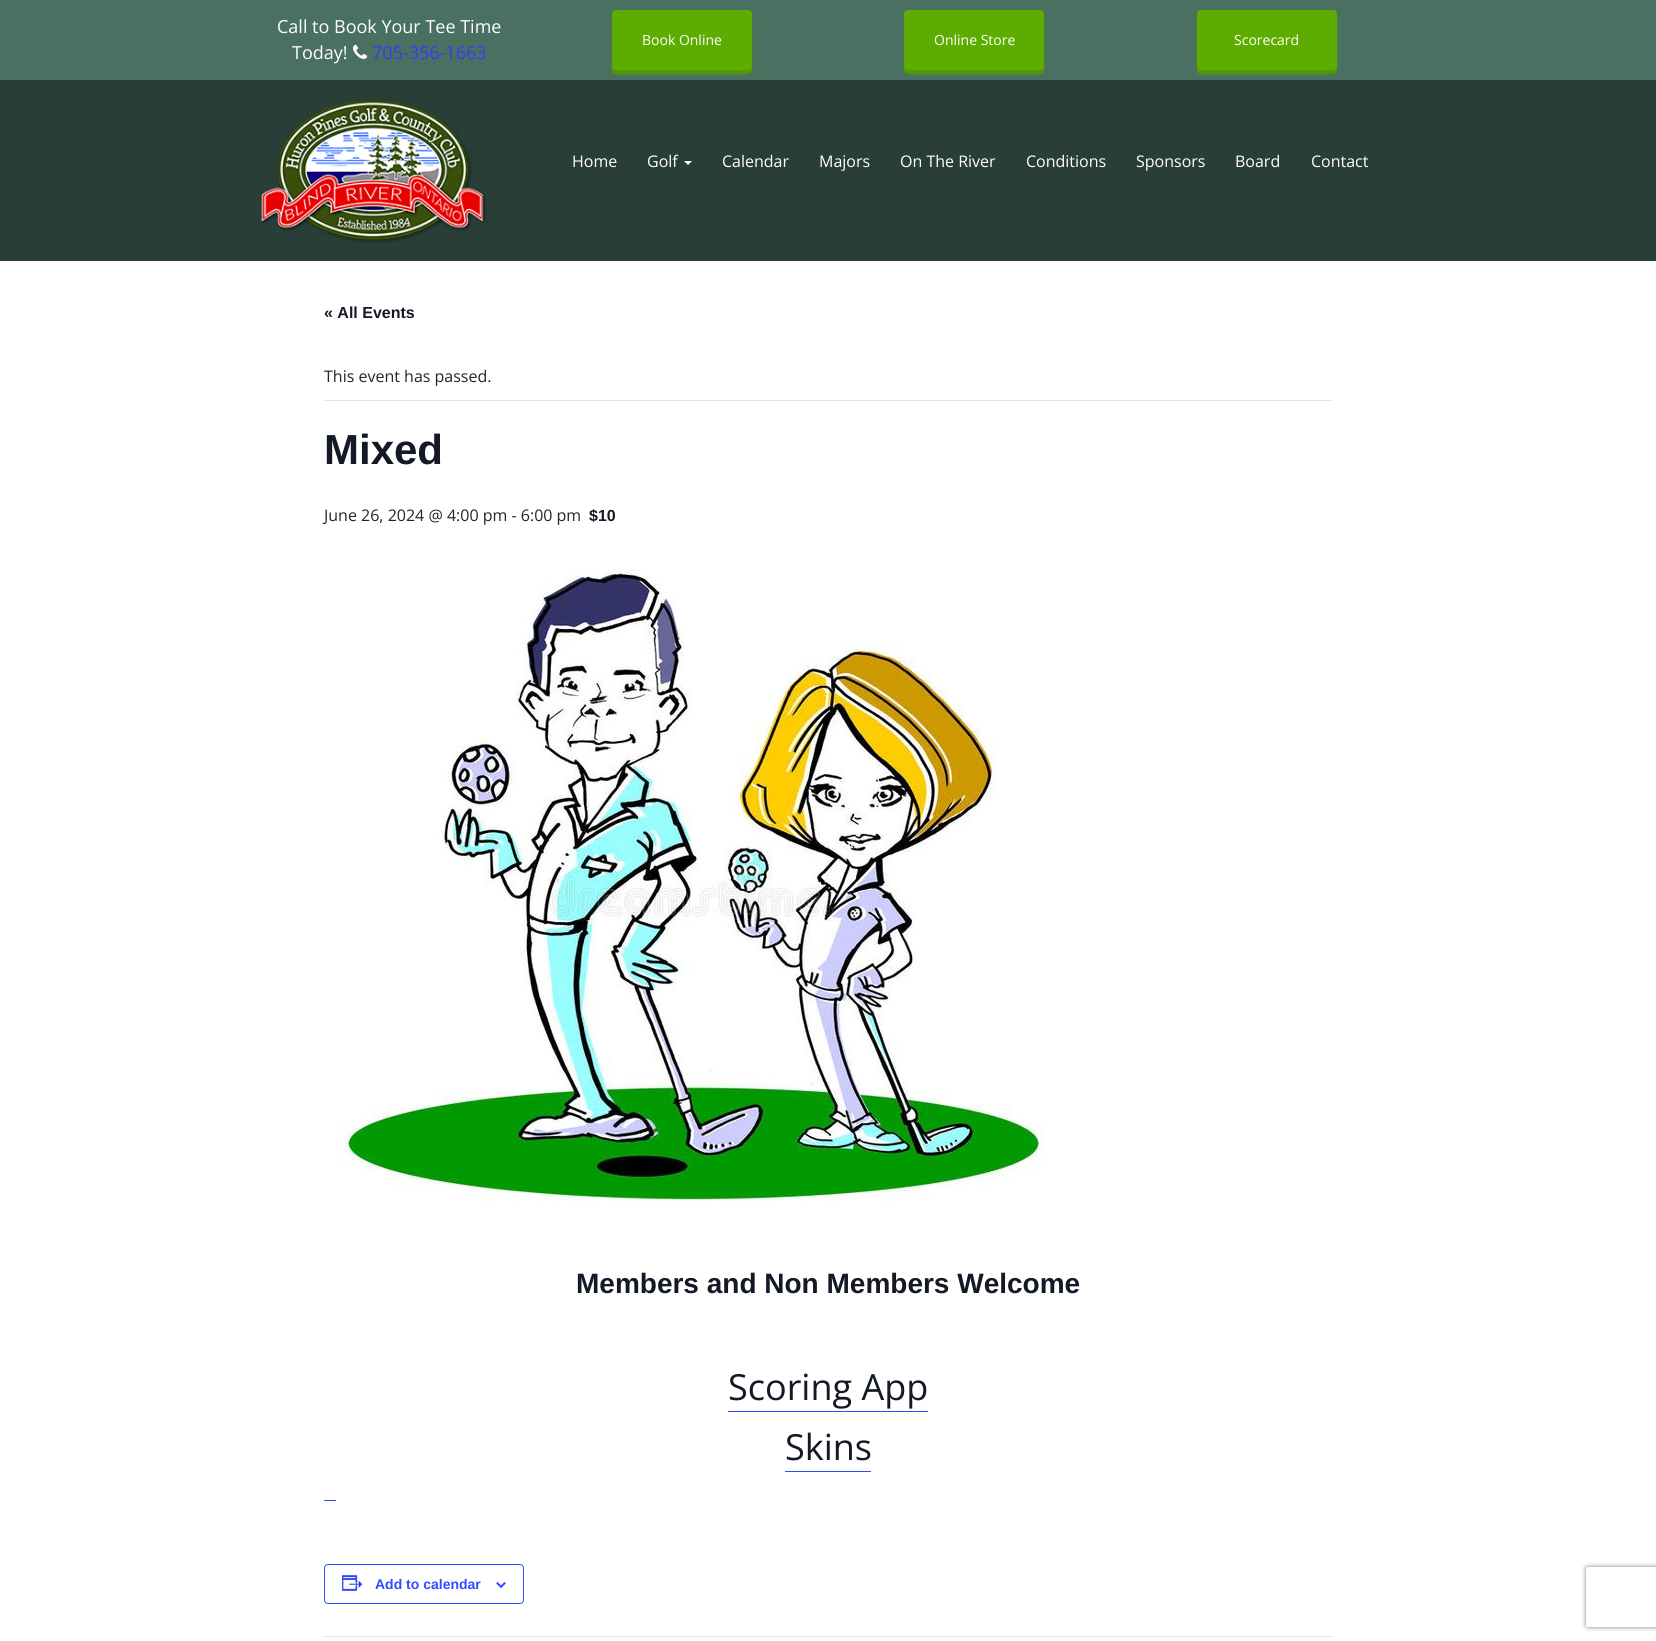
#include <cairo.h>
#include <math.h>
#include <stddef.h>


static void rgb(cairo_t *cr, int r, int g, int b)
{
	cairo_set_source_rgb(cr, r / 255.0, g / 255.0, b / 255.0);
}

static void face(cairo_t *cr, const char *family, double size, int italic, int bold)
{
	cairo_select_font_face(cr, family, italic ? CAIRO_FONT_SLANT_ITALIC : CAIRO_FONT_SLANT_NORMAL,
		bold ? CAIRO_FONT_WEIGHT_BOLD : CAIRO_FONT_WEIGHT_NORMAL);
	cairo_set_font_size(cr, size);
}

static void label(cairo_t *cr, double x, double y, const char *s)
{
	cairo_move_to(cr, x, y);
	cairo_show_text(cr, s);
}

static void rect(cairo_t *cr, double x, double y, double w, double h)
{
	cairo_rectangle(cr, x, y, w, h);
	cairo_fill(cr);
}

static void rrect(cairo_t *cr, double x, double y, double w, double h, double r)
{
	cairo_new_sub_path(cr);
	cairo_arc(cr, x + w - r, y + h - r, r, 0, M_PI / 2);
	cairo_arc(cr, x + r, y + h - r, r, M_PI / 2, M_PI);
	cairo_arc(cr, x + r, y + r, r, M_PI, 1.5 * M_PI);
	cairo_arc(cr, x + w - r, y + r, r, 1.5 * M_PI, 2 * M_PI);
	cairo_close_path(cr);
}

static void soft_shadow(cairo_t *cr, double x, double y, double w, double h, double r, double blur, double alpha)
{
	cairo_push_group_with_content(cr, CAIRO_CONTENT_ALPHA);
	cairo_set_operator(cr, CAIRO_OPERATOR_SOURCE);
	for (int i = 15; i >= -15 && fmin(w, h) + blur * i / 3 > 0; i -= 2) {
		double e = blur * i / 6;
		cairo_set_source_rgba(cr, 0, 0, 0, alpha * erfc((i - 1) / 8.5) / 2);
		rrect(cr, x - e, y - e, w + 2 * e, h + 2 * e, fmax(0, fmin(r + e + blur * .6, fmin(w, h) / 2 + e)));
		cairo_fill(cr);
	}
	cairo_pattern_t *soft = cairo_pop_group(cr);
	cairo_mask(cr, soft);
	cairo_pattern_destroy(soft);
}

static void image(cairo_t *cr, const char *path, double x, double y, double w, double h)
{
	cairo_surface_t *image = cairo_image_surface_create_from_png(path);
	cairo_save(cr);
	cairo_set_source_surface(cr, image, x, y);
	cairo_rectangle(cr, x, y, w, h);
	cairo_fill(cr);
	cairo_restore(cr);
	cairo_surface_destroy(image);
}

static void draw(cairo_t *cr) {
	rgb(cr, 255, 255, 255);
	cairo_paint(cr);
	rgb(cr, 74, 112, 97);
	rect(cr, 0, 0, 1656, 80);
	face(cr, "Open Sans", 18, 0, 0);
	rgb(cr, 255, 255, 255);
	label(cr, 277, 33, "Call to Book Your Tee Time");
	label(cr, 292, 59, "Today!");
	image(cr, "image0.png", 353, 44, 15, 15);
	rgb(cr, 51, 60, 255);
	label(cr, 372, 59, "705-356-1663");
	rgb(cr, 82, 154, 0);
	soft_shadow(cr, 612, 14, 140, 60, 4, 0.5, 1);
	rgb(cr, 92, 173, 0);
	rrect(cr, 612, 10, 140, 60, 4);
	cairo_fill(cr);
	face(cr, "Open Sans", 14, 0, 0);
	rgb(cr, 255, 255, 255);
	label(cr, 642, 45, "Book Online");
	rgb(cr, 82, 154, 0);
	soft_shadow(cr, 904, 14, 140, 60, 4, 0.5, 1);
	rgb(cr, 92, 173, 0);
	rrect(cr, 904, 10, 140, 60, 4);
	cairo_fill(cr);
	rgb(cr, 255, 255, 255);
	label(cr, 934, 45, "Online Store");
	rgb(cr, 82, 154, 0);
	soft_shadow(cr, 1197, 14, 140, 60, 4, 0.5, 1);
	rgb(cr, 92, 173, 0);
	rrect(cr, 1197, 10, 140, 60, 4);
	cairo_fill(cr);
	rgb(cr, 255, 255, 255);
	label(cr, 1234, 45, "Scorecard");
	rgb(cr, 41, 62, 55);
	rect(cr, 0, 80, 1656, 181);
	image(cr, "image1.png", 261, 99, 225, 144);
	face(cr, "Open Sans", 16, 0, 0);
	rgb(cr, 255, 255, 255);
	label(cr, 572, 167, "Home");
	label(cr, 647, 167, "Golf");
	cairo_new_path(cr);
	cairo_move_to(cr, 684, 161);
	cairo_line_to(cr, 692, 161);
	cairo_line_to(cr, 688, 165);
	cairo_close_path(cr);
	cairo_fill(cr);
	label(cr, 722, 167, "Calendar");
	label(cr, 819, 167, "Majors");
	label(cr, 900, 167, "On The River");
	label(cr, 1026, 167, "Conditions");
	label(cr, 1136, 167, "Sponsors");
	label(cr, 1235, 167, "Board");
	label(cr, 1311, 167, "Contact");
	face(cr, "Liberation Sans", 16, 0, 1);
	rgb(cr, 20, 24, 39);
	label(cr, 324, 318, "« All Events");
	rgb(cr, 228, 228, 228);
	rect(cr, 324, 400, 1008, 1);
	face(cr, "Open Sans", 16, 0, 0);
	rgb(cr, 37, 37, 37);
	label(cr, 324, 382, "This event has passed.");
	face(cr, "Liberation Sans", 42, 0, 1);
	rgb(cr, 20, 24, 39);
	label(cr, 324, 464, "Mixed");
	face(cr, "Open Sans", 16, 0, 0);
	rgb(cr, 37, 37, 37);
	label(cr, 324, 521, "June 26, 2024 @ 4:00 pm - 6:00 pm");
	face(cr, "Liberation Sans", 16, 0, 1);
	rgb(cr, 20, 24, 39);
	label(cr, 589, 521, "$10");
	image(cr, "image2.png", 340, 569, 704, 632);
	face(cr, "Liberation Sans", 28, 0, 1);
	label(cr, 576, 1293, "Members and Non Members Welcome");
	face(cr, "Open Sans", 36, 0, 0);
	label(cr, 728, 1400, "Scoring App");
	rgb(cr, 51, 74, 255);
	rect(cr, 728, 1411, 200, 1);
	rgb(cr, 20, 24, 39);
	label(cr, 785, 1460, "Skins");
	rgb(cr, 51, 74, 255);
	rect(cr, 785, 1471, 86, 1);
	rect(cr, 324, 1500, 12, 1);
	rrect(cr, 324.5, 1564.5, 199, 39, 3.5);
	cairo_set_line_width(cr, 1);
	cairo_stroke(cr);
	image(cr, "image3.png", 342, 1575, 21, 16);
	face(cr, "Liberation Sans", 14, 0, 1);
	label(cr, 375, 1589, "Add to calendar");
	image(cr, "image4.png", 496, 1582, 10, 6);
	rgb(cr, 228, 228, 228);
	rect(cr, 324, 1636, 1008, 1);
	cairo_save(cr);
	cairo_set_fill_rule(cr, CAIRO_FILL_RULE_EVEN_ODD);
	cairo_new_path(cr);
	cairo_move_to(cr, 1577, 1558);
	cairo_line_to(cr, 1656, 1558);
	cairo_line_to(cr, 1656, 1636);
	cairo_line_to(cr, 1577, 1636);
	cairo_close_path(cr);
	cairo_move_to(cr, 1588, 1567);
	cairo_line_to(cr, 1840, 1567);
	cairo_curve_to(cr, 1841, 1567, 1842, 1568, 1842, 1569);
	cairo_line_to(cr, 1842, 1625);
	cairo_curve_to(cr, 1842, 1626, 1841, 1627, 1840, 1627);
	cairo_line_to(cr, 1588, 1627);
	cairo_curve_to(cr, 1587, 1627, 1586, 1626, 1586, 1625);
	cairo_line_to(cr, 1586, 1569);
	cairo_curve_to(cr, 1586, 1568, 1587, 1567, 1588, 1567);
	cairo_close_path(cr);
	cairo_clip(cr);
	rgb(cr, 128, 128, 128);
	soft_shadow(cr, 1586, 1567, 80, 60, 2, 2.5, 1);
	cairo_restore(cr);
}

int main(void) {
	cairo_surface_t *surface = cairo_image_surface_create(CAIRO_FORMAT_RGB24, 1656, 1641);
	cairo_t *cr = cairo_create(surface);
	cairo_font_options_t *options = cairo_font_options_create();
	cairo_font_options_set_hint_metrics(options, CAIRO_HINT_METRICS_OFF);
	cairo_font_options_set_hint_style(options, CAIRO_HINT_STYLE_NONE);
	cairo_set_font_options(cr, options);
	cairo_set_miter_limit(cr, 4);
	draw(cr);
	cairo_surface_write_to_png(surface, "render.png");
	cairo_font_options_destroy(options);
	cairo_destroy(cr);
	cairo_surface_destroy(surface);
	return 0;
}
